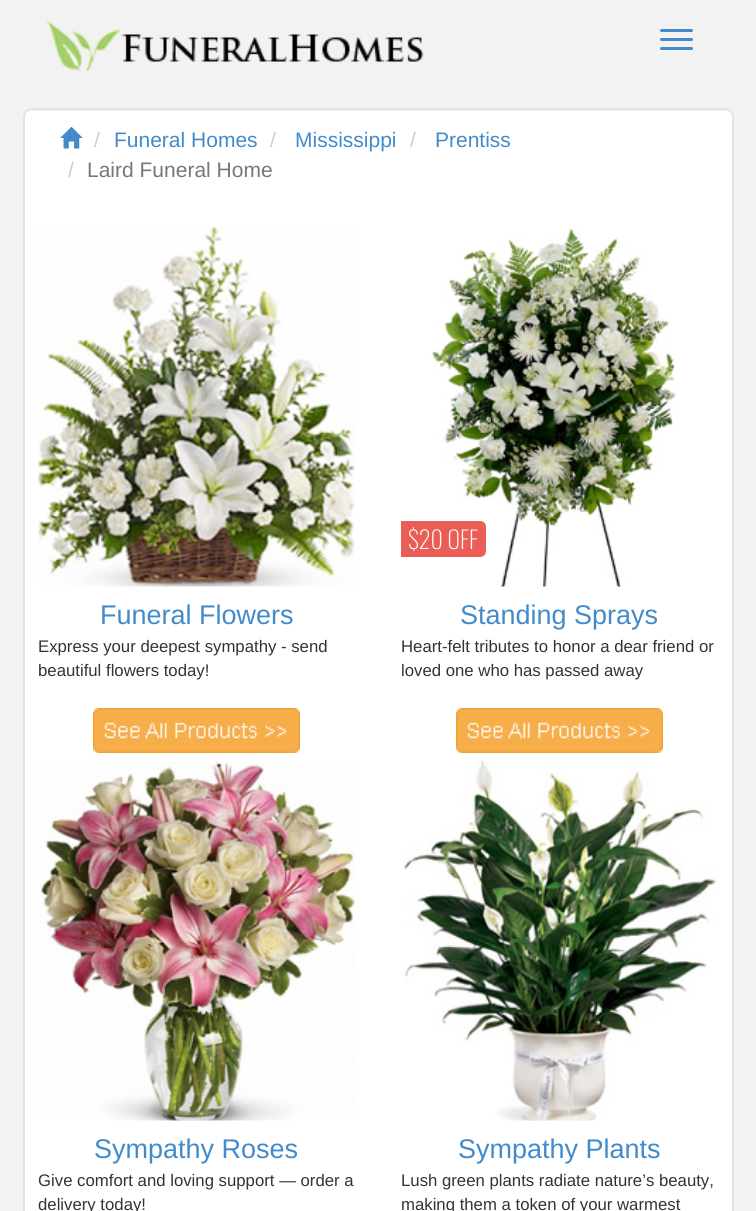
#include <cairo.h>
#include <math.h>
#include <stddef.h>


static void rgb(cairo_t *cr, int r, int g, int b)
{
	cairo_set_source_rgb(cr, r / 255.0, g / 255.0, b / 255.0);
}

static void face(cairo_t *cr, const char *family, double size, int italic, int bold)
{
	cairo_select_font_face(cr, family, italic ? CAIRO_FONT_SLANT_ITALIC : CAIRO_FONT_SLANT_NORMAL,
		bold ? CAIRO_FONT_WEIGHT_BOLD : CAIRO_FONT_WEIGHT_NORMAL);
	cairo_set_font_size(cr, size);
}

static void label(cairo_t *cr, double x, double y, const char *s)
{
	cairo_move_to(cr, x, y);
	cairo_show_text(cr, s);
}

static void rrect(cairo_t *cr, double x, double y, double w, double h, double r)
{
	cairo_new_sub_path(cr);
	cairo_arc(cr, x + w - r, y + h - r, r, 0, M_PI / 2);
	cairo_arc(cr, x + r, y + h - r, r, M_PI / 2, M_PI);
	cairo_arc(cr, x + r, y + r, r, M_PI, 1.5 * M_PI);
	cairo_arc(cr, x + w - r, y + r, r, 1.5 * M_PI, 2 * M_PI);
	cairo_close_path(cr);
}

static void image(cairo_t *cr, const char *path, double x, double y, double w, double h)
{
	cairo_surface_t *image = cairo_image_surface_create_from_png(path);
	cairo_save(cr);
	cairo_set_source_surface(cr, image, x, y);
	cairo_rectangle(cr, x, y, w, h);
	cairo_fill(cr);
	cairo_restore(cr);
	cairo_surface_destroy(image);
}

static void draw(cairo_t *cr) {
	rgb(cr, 242, 242, 242);
	cairo_paint(cr);
	image(cr, "image0.png", 46, 21, 378, 50);
	rgb(cr, 66, 139, 202);
	rrect(cr, 660, 29, 33, 3, 1.5);
	cairo_fill(cr);
	rrect(cr, 660, 38, 33, 3, 1.5);
	cairo_fill(cr);
	rrect(cr, 660, 47, 33, 3, 1.5);
	cairo_fill(cr);
	rgb(cr, 255, 255, 255);
	rrect(cr, 23, 108, 711, 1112, 9);
	cairo_fill(cr);
	rgb(cr, 242, 242, 242);
	cairo_new_path(cr);
	cairo_move_to(cr, 32, 111);
	cairo_line_to(cr, 724, 111);
	cairo_curve_to(cr, 729, 111, 732, 114, 732, 118);
	cairo_curve_to(cr, 732, 114, 728, 110, 724, 110);
	cairo_line_to(cr, 32, 110);
	cairo_curve_to(cr, 28, 110, 24, 114, 24, 118);
	cairo_curve_to(cr, 24, 114, 27, 111, 32, 111);
	cairo_close_path(cr);
	cairo_fill(cr);
	rrect(cr, 24, 109, 709, 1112, 8);
	rgb(cr, 227, 227, 227);
	cairo_stroke(cr);
	image(cr, "image1.png", 60, 127, 23, 22);
	face(cr, "Liberation Sans", 21, 0, 0);
	rgb(cr, 204, 204, 204);
	label(cr, 94, 147, "/");
	rgb(cr, 66, 139, 202);
	label(cr, 114, 147, "Funeral Homes");
	rgb(cr, 204, 204, 204);
	label(cr, 270, 147, "/");
	rgb(cr, 66, 139, 202);
	label(cr, 295, 147, "Mississippi");
	rgb(cr, 204, 204, 204);
	label(cr, 410, 147, "/");
	rgb(cr, 66, 139, 202);
	label(cr, 435, 147, "Prentiss");
	rgb(cr, 204, 204, 204);
	label(cr, 68, 177, "/");
	rgb(cr, 119, 119, 119);
	label(cr, 87, 177, "Laird Funeral Home");
	image(cr, "image2.png", 37, 226, 318, 361);
	face(cr, "Liberation Sans", 27, 0, 0);
	rgb(cr, 66, 139, 202);
	label(cr, 100, 624, "Funeral Flowers");
	face(cr, "Liberation Sans", 16.75, 0, 0);
	rgb(cr, 51, 51, 51);
	label(cr, 38, 652, "Express your deepest sympathy - send");
	label(cr, 38, 676, "beautiful flowers today!");
	image(cr, "image3.png", 93, 708, 207, 45);
	image(cr, "image4.png", 431, 228, 246, 359);
	rgb(cr, 235, 94, 88);
	cairo_new_path(cr);
	cairo_move_to(cr, 401, 521);
	cairo_line_to(cr, 480, 521);
	cairo_curve_to(cr, 483.5, 521, 486, 523.5, 486, 527);
	cairo_line_to(cr, 486, 551);
	cairo_curve_to(cr, 486, 554.5, 483.5, 557, 480, 557);
	cairo_line_to(cr, 401, 557);
	cairo_close_path(cr);
	cairo_fill(cr);
	face(cr, "Oswald ExtraLight", 24, 0, 0);
	rgb(cr, 255, 255, 255);
	label(cr, 408, 549, "$20 OFF");
	face(cr, "Liberation Sans", 27, 0, 0);
	rgb(cr, 66, 139, 202);
	label(cr, 460, 624, "Standing Sprays");
	face(cr, "Liberation Sans", 16.75, 0, 0);
	rgb(cr, 51, 51, 51);
	label(cr, 401, 652, "Heart-felt tributes to honor a dear friend or");
	label(cr, 401, 676, "loved one who has passed away");
	image(cr, "image5.png", 456, 708, 207, 45);
	image(cr, "image6.png", 38, 761, 318, 360);
	face(cr, "Liberation Sans", 27, 0, 0);
	rgb(cr, 66, 139, 202);
	label(cr, 94, 1158, "Sympathy Roses");
	face(cr, "Liberation Sans", 16.75, 0, 0);
	rgb(cr, 51, 51, 51);
	label(cr, 38, 1186, "Give comfort and loving support — order a");
	label(cr, 38, 1210, "delivery today!");
	image(cr, "image7.png", 403, 760, 315, 361);
	face(cr, "Liberation Sans", 27, 0, 0);
	rgb(cr, 66, 139, 202);
	label(cr, 458, 1158, "Sympathy Plants");
	face(cr, "Liberation Sans", 16.75, 0, 0);
	rgb(cr, 51, 51, 51);
	label(cr, 401, 1186, "Lush green plants radiate nature’s beauty,");
	label(cr, 401, 1210, "making them a token of your warmest");
}

int main(void) {
	cairo_surface_t *surface = cairo_image_surface_create(CAIRO_FORMAT_RGB24, 756, 1211);
	cairo_t *cr = cairo_create(surface);
	cairo_font_options_t *options = cairo_font_options_create();
	cairo_font_options_set_hint_metrics(options, CAIRO_HINT_METRICS_OFF);
	cairo_font_options_set_hint_style(options, CAIRO_HINT_STYLE_NONE);
	cairo_set_font_options(cr, options);
	cairo_set_miter_limit(cr, 4);
	draw(cr);
	cairo_surface_write_to_png(surface, "render.png");
	cairo_font_options_destroy(options);
	cairo_destroy(cr);
	cairo_surface_destroy(surface);
	return 0;
}
